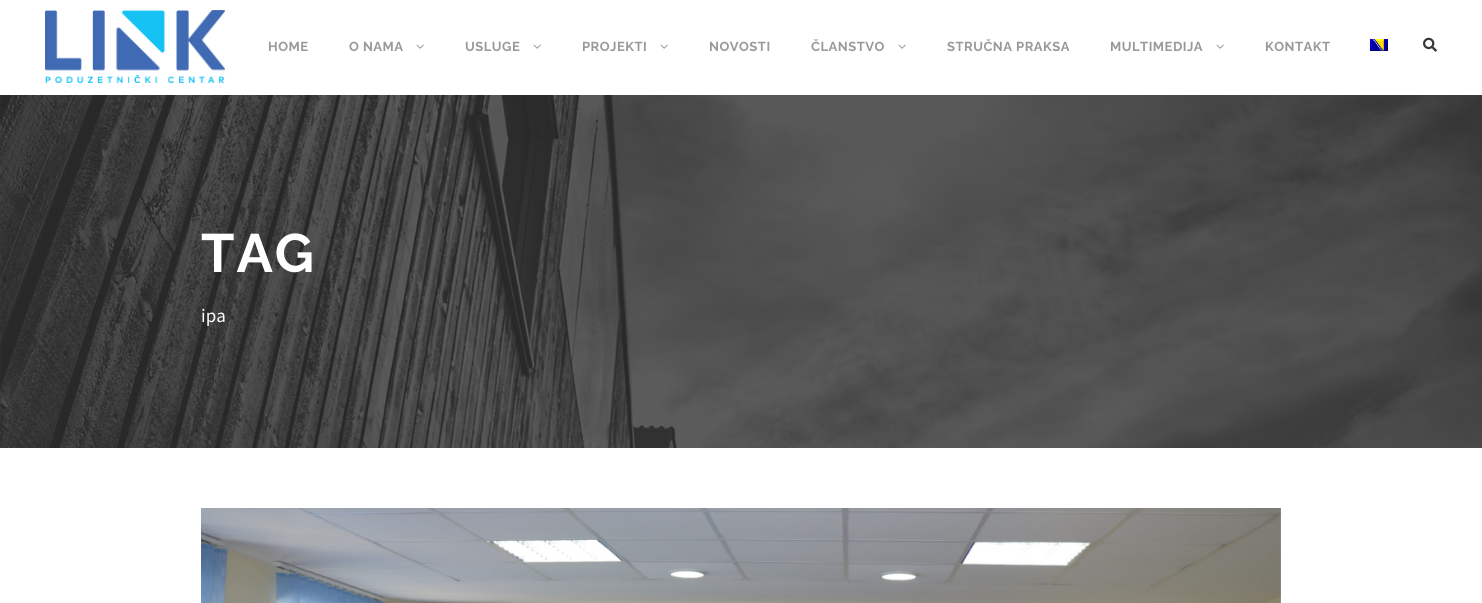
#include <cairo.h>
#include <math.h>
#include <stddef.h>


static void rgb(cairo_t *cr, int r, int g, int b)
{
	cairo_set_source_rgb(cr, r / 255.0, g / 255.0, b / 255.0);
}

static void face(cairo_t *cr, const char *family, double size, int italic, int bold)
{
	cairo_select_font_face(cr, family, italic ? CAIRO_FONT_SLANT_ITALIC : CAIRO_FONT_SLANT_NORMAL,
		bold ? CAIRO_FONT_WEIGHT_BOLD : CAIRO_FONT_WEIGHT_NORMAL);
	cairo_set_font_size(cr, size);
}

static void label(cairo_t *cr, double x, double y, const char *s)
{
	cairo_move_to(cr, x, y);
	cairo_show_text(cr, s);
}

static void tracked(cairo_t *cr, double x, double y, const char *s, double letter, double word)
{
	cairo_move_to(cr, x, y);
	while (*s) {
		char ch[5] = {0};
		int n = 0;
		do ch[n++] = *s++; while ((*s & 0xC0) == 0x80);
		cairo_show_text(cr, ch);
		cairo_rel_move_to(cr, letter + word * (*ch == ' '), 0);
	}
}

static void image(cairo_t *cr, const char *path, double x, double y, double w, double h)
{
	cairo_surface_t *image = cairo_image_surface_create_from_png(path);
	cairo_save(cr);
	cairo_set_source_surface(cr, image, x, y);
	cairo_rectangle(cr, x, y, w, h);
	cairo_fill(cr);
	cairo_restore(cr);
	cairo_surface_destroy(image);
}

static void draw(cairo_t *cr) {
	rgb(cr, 255, 255, 255);
	cairo_paint(cr);
	image(cr, "image0.png", 45, 10, 180, 73);
	face(cr, "Raleway", 13, 0, 1);
	rgb(cr, 153, 153, 153);
	tracked(cr, 268, 51, "HOME", 0.5, 0);
	tracked(cr, 349, 51, "O NAMA", 0.5, 0);
	image(cr, "image1.png", 416, 44, 8, 5);
	tracked(cr, 465, 51, "USLUGE", 0.5, 0);
	image(cr, "image1.png", 533, 44, 8, 5);
	tracked(cr, 582, 51, "PROJEKTI", 0.5, 0);
	image(cr, "image1.png", 660, 44, 8, 5);
	tracked(cr, 709, 51, "NOVOSTI", 0.5, 0);
	tracked(cr, 811, 51, "ČLANSTVO", 0.5, 0);
	image(cr, "image1.png", 898, 44, 8, 5);
	tracked(cr, 947, 51, "STRUČNA PRAKSA", 0.5, 0);
	tracked(cr, 1110, 51, "MULTIMEDIJA", 0.5, 0);
	image(cr, "image1.png", 1216, 44, 8, 5);
	tracked(cr, 1265, 51, "KONTAKT", 0.5, 0);
	image(cr, "image2.png", 1370, 39, 18, 12);
	image(cr, "image3.png", 1423, 37, 14, 15);
	image(cr, "image4.png", 0, 95, 1482, 353);
	face(cr, "Raleway", 54, 0, 1);
	rgb(cr, 255, 255, 255);
	tracked(cr, 201, 272, "TAG", 2, 0);
	face(cr, "Source Sans Pro", 19, 0, 0);
	label(cr, 201, 322, "ipa");
	image(cr, "image5.png", 201, 508, 1080, 95);
}

int main(void) {
	cairo_surface_t *surface = cairo_image_surface_create(CAIRO_FORMAT_RGB24, 1482, 603);
	cairo_t *cr = cairo_create(surface);
	cairo_font_options_t *options = cairo_font_options_create();
	cairo_font_options_set_hint_metrics(options, CAIRO_HINT_METRICS_OFF);
	cairo_font_options_set_hint_style(options, CAIRO_HINT_STYLE_NONE);
	cairo_set_font_options(cr, options);
	cairo_set_miter_limit(cr, 4);
	draw(cr);
	cairo_surface_write_to_png(surface, "render.png");
	cairo_font_options_destroy(options);
	cairo_destroy(cr);
	cairo_surface_destroy(surface);
	return 0;
}
